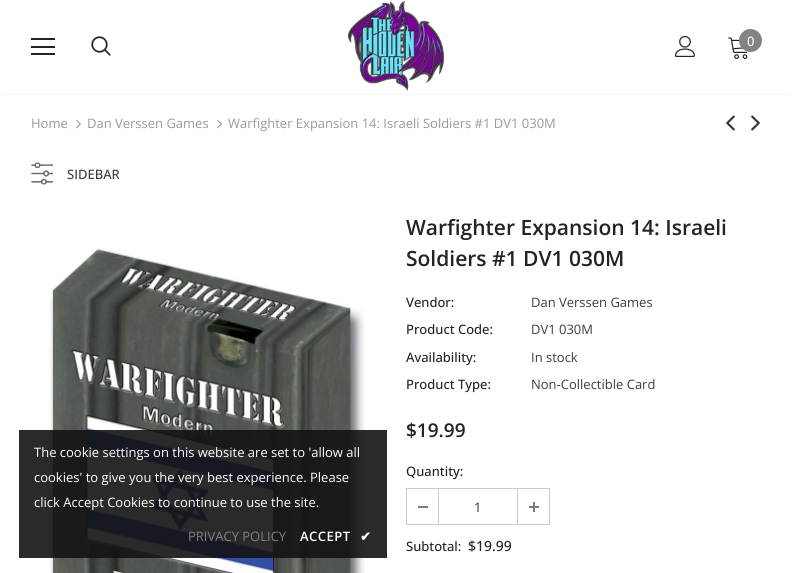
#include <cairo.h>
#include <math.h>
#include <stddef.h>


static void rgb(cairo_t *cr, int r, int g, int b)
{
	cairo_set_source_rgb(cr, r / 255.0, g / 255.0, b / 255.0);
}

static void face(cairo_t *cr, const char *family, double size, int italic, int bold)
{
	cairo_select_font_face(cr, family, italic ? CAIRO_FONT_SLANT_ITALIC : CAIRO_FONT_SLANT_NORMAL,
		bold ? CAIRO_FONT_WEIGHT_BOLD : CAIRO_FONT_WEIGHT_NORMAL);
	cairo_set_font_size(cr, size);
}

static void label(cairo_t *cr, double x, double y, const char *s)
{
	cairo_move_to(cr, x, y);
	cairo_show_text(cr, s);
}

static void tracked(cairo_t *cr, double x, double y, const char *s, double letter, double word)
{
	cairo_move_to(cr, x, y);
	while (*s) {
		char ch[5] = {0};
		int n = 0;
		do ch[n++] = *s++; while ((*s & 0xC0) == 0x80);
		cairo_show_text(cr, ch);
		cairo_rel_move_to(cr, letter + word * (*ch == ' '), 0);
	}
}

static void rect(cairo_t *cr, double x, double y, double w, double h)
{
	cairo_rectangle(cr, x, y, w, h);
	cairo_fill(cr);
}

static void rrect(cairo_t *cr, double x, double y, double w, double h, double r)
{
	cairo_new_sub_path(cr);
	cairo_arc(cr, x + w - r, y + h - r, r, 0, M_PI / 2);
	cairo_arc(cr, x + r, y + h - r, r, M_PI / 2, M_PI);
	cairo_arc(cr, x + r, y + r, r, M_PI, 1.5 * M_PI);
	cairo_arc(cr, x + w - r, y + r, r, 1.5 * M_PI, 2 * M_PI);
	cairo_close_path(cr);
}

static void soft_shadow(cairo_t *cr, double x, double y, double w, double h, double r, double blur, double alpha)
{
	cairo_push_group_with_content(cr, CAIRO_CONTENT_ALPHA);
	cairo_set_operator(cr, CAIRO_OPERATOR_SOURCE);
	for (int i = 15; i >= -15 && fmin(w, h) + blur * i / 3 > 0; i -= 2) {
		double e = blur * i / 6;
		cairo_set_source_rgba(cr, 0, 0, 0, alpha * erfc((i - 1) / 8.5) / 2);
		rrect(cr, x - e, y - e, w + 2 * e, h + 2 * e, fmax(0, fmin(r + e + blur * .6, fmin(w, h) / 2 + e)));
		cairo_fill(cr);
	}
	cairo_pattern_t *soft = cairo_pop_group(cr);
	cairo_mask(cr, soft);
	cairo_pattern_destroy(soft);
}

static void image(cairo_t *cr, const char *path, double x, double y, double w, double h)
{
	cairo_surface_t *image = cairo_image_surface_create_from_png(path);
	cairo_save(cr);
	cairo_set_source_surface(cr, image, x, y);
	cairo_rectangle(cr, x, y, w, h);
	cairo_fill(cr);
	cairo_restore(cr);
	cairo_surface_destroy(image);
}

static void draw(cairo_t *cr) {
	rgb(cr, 255, 255, 255);
	cairo_paint(cr);
	cairo_save(cr);
	cairo_rectangle(cr, 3, 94, 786, 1);
	cairo_clip(cr);
	rgb(cr, 0, 0, 0);
	soft_shadow(cr, 3, 6, 786, 88, 0, 1.5, 0.12);
	cairo_restore(cr);
	rgb(cr, 35, 35, 35);
	rect(cr, 31, 38, 24, 2);
	rect(cr, 31, 46, 24, 2);
	rect(cr, 31, 53, 24, 2);
	image(cr, "image0.png", 91, 36, 20, 20);
	image(cr, "image1.png", 348, 1, 96, 90);
	image(cr, "image2.png", 675, 36, 20, 21);
	image(cr, "image3.png", 728, 37, 20, 22);
	rgb(cr, 131, 131, 131);
	cairo_arc(cr, 750.5, 40.5, 11.5, 0, 2 * M_PI);
	cairo_fill(cr);
	face(cr, "Open Sans Medium", 13, 0, 0);
	rgb(cr, 255, 255, 255);
	label(cr, 747, 46, "0");
	face(cr, "Open Sans", 13, 0, 0);
	rgb(cr, 153, 153, 153);
	label(cr, 31, 128, "Home");
	image(cr, "image4.png", 76, 120, 5, 9);
	label(cr, 87, 128, "Dan Verssen Games");
	image(cr, "image4.png", 217, 120, 5, 9);
	label(cr, 228, 128, "Warfighter Expansion 14: Israeli Soldiers #1 DV1 030M");
	image(cr, "image5.png", 726, 115, 9, 16);
	image(cr, "image6.png", 751, 115, 9, 16);
	image(cr, "image7.png", 31, 162, 22, 23);
	face(cr, "Open Sans Medium", 13, 0, 0);
	rgb(cr, 60, 60, 60);
	label(cr, 67, 179, "SIDEBAR");
	image(cr, "image8.png", 49, 248, 316, 325);
	face(cr, "Open Sans SemiBold", 21, 0, 0);
	rgb(cr, 35, 35, 35);
	label(cr, 406, 235, "Warfighter Expansion 14: Israeli");
	label(cr, 406, 266, "Soldiers #1 DV1 030M");
	face(cr, "Open Sans Medium", 13, 0, 0);
	label(cr, 406, 307, "Vendor:");
	face(cr, "Open Sans", 13, 0, 0);
	rgb(cr, 60, 60, 60);
	label(cr, 531, 307, "Dan Verssen Games");
	face(cr, "Open Sans Medium", 13, 0, 0);
	rgb(cr, 35, 35, 35);
	label(cr, 406, 334, "Product Code:");
	face(cr, "Open Sans", 13, 0, 0);
	rgb(cr, 60, 60, 60);
	label(cr, 531, 334, "DV1 030M");
	face(cr, "Open Sans Medium", 13, 0, 0);
	rgb(cr, 35, 35, 35);
	label(cr, 406, 362, "Availability:");
	face(cr, "Open Sans", 13, 0, 0);
	rgb(cr, 60, 60, 60);
	label(cr, 531, 362, "In stock");
	face(cr, "Open Sans Medium", 13, 0, 0);
	rgb(cr, 35, 35, 35);
	label(cr, 406, 389, "Product Type:");
	face(cr, "Open Sans", 13, 0, 0);
	rgb(cr, 60, 60, 60);
	label(cr, 531, 389, "Non-Collectible Card");
	face(cr, "Open Sans SemiBold", 19, 0, 0);
	rgb(cr, 35, 35, 35);
	label(cr, 406, 437, "$19.99");
	face(cr, "Open Sans Medium", 13, 0, 0);
	label(cr, 406, 476, "Quantity:");
	cairo_rectangle(cr, 406.5, 488.5, 143, 36);
	rgb(cr, 203, 203, 203);
	cairo_set_line_width(cr, 1);
	cairo_stroke(cr);
	rect(cr, 438, 489, 1, 35);
	rgb(cr, 123, 123, 123);
	rect(cr, 418, 506, 10, 2);
	face(cr, "Open Sans", 13, 0, 0);
	rgb(cr, 45, 45, 45);
	label(cr, 474, 512, "1");
	rgb(cr, 203, 203, 203);
	rect(cr, 517, 489, 1, 35);
	rgb(cr, 123, 123, 123);
	rect(cr, 529, 506, 10, 2);
	rect(cr, 533, 502, 2, 10);
	face(cr, "Open Sans Medium", 13, 0, 0);
	rgb(cr, 35, 35, 35);
	label(cr, 406, 551, "Subtotal:");
	face(cr, "Open Sans Medium", 14, 0, 0);
	label(cr, 468, 551, "$19.99");
	cairo_set_source_rgba(cr, 0.078, 0.078, 0.078, 0.9);
	rect(cr, 19, 430, 368, 128);
	face(cr, "Open Sans", 13, 0, 0);
	rgb(cr, 255, 255, 255);
	label(cr, 34, 457, "The cookie settings on this website are set to 'allow all");
	label(cr, 34, 482, "cookies' to give you the very best experience. Please");
	label(cr, 34, 507, "click Accept Cookies to continue to use the site.");
	rgb(cr, 129, 129, 129);
	label(cr, 188, 541, "PRIVACY POLICY");
	face(cr, "Open Sans SemiBold", 13, 0, 0);
	rgb(cr, 255, 255, 255);
	tracked(cr, 300, 541, "ACCEPT", 0.5, 0);
	face(cr, "DejaVu Sans", 13, 0, 1);
	tracked(cr, 360, 541, "✔", 0.5, 0);
}

int main(void) {
	cairo_surface_t *surface = cairo_image_surface_create(CAIRO_FORMAT_RGB24, 792, 573);
	cairo_t *cr = cairo_create(surface);
	cairo_font_options_t *options = cairo_font_options_create();
	cairo_font_options_set_hint_metrics(options, CAIRO_HINT_METRICS_OFF);
	cairo_font_options_set_hint_style(options, CAIRO_HINT_STYLE_NONE);
	cairo_set_font_options(cr, options);
	cairo_set_miter_limit(cr, 4);
	draw(cr);
	cairo_surface_write_to_png(surface, "render.png");
	cairo_font_options_destroy(options);
	cairo_destroy(cr);
	cairo_surface_destroy(surface);
	return 0;
}
